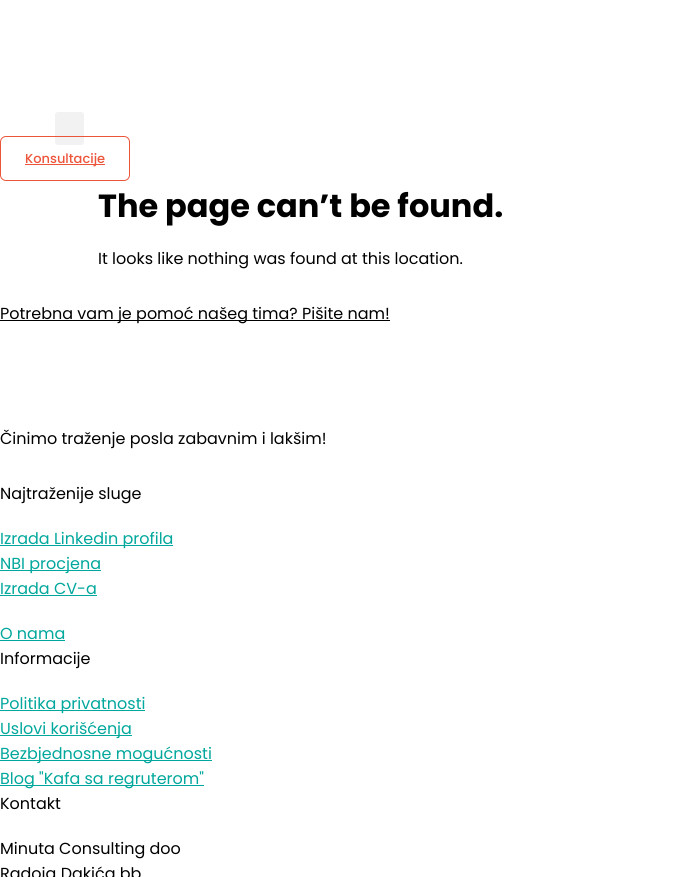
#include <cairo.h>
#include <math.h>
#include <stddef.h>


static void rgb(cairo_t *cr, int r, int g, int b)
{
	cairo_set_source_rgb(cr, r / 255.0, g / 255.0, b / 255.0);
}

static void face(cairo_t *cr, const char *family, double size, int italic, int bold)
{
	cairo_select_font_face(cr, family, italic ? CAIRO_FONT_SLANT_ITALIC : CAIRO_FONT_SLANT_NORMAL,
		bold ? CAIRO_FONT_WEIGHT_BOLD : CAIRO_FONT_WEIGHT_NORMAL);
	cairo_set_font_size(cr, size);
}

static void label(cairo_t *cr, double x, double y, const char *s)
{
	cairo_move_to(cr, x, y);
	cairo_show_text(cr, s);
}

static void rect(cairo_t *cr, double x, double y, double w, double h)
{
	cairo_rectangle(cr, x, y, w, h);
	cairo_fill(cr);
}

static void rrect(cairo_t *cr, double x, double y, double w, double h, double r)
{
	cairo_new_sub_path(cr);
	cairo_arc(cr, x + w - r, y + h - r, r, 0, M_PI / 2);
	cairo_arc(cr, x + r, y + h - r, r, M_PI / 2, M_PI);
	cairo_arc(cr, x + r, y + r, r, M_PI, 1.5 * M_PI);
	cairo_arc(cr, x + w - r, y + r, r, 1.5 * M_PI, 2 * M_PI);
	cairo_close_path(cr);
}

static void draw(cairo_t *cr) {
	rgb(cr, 255, 255, 255);
	cairo_paint(cr);
	rgb(cr, 242, 242, 242);
	rrect(cr, 55, 112, 29, 33, 3);
	cairo_fill(cr);
	rrect(cr, 0.5, 136.5, 129, 44, 5.5);
	rgb(cr, 237, 85, 59);
	cairo_set_line_width(cr, 1);
	cairo_stroke(cr);
	rect(cr, 25, 164, 80, 1);
	face(cr, "Poppins Medium", 13, 0, 0);
	label(cr, 25, 163, "Konsultacije");
	face(cr, "Poppins", 32, 0, 1);
	rgb(cr, 0, 0, 0);
	label(cr, 98, 217, "The page can’t be found.");
	face(cr, "Poppins", 16, 0, 0);
	label(cr, 98, 264, "It looks like nothing was found at this location.");
	rect(cr, 0, 320, 390, 1);
	label(cr, 0, 319, "Potrebna vam je pomoć našeg tima? Pišite nam!");
	label(cr, 0, 444, "Činimo traženje posla zabavnim i lakšim!");
	label(cr, 0, 499, "Najtraženije sluge");
	rgb(cr, 0, 167, 156);
	rect(cr, 0, 545, 173, 1);
	label(cr, 0, 544, "Izrada Linkedin profila");
	rect(cr, 0, 570, 101, 1);
	label(cr, 0, 569, "NBI procjena");
	label(cr, 0, 594, "Izrada CV-a");
	rect(cr, 0, 595, 97, 1);
	label(cr, 0, 639, "O nama");
	rect(cr, 0, 640, 65, 1);
	rgb(cr, 0, 0, 0);
	label(cr, 0, 664, "Informacije");
	rgb(cr, 0, 167, 156);
	rect(cr, 0, 710, 145, 1);
	label(cr, 0, 709, "Politika privatnosti");
	rect(cr, 0, 735, 132, 1);
	label(cr, 0, 734, "Uslovi korišćenja");
	rect(cr, 0, 760, 212, 1);
	label(cr, 0, 759, "Bezbjednosne mogućnosti");
	rect(cr, 0, 785, 204, 1);
	label(cr, 0, 784, "Blog \"Kafa sa regruterom\"");
	rgb(cr, 0, 0, 0);
	label(cr, 0, 809, "Kontakt");
	label(cr, 0, 854, "Minuta Consulting doo");
	label(cr, 0, 879, "Radoja Dakića bb");
}

int main(void) {
	cairo_surface_t *surface = cairo_image_surface_create(CAIRO_FORMAT_RGB24, 695, 877);
	cairo_t *cr = cairo_create(surface);
	cairo_font_options_t *options = cairo_font_options_create();
	cairo_font_options_set_hint_metrics(options, CAIRO_HINT_METRICS_OFF);
	cairo_font_options_set_hint_style(options, CAIRO_HINT_STYLE_NONE);
	cairo_set_font_options(cr, options);
	cairo_set_miter_limit(cr, 4);
	draw(cr);
	cairo_surface_write_to_png(surface, "render.png");
	cairo_font_options_destroy(options);
	cairo_destroy(cr);
	cairo_surface_destroy(surface);
	return 0;
}
